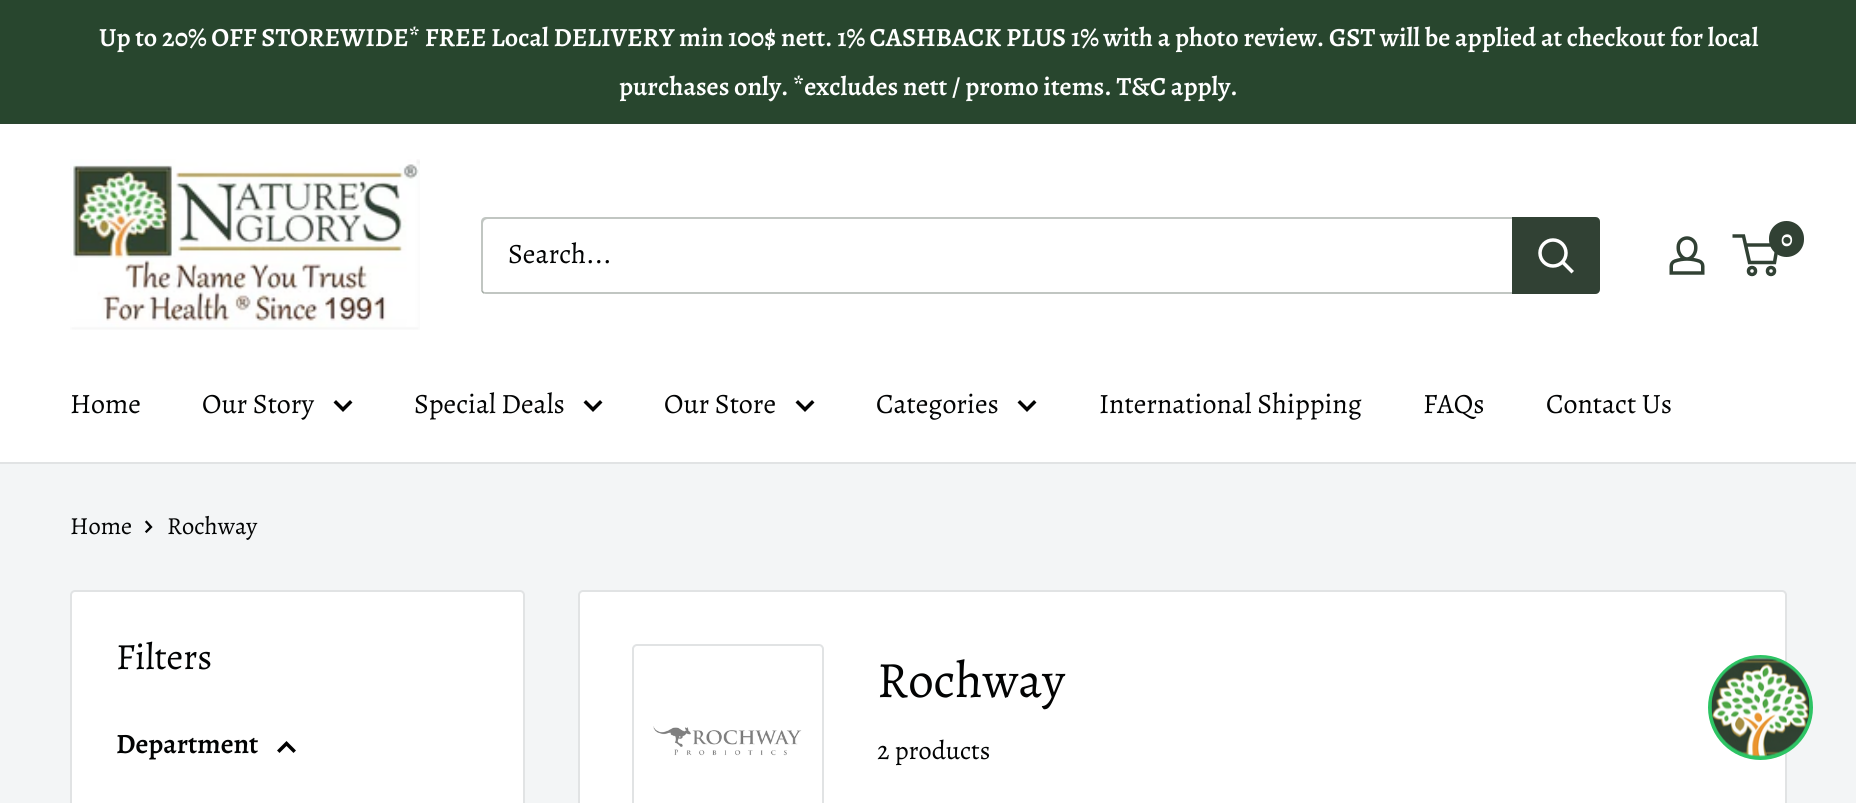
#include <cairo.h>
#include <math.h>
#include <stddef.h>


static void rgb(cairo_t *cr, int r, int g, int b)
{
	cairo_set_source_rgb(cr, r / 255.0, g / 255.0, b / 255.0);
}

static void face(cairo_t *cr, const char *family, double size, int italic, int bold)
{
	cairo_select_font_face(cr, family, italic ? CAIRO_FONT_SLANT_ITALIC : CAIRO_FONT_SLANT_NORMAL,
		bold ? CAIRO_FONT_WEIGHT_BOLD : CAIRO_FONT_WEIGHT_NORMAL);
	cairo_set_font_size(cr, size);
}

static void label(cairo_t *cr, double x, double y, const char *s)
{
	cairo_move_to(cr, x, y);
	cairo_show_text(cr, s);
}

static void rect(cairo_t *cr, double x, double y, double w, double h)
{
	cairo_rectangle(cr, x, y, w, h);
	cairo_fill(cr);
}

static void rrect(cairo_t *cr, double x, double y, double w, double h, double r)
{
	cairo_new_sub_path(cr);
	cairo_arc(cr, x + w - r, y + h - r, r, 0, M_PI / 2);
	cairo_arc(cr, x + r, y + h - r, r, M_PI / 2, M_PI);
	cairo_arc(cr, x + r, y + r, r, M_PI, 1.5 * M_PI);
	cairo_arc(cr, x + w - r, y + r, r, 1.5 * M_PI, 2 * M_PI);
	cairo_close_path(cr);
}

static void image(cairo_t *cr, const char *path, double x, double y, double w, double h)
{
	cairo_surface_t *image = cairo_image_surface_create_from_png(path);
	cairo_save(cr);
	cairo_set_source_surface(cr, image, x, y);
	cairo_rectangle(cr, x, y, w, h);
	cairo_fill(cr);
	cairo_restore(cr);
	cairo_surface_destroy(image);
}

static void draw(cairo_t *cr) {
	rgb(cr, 243, 245, 246);
	cairo_paint(cr);
	rgb(cr, 40, 70, 46);
	rect(cr, 0, 0, 1856, 123);
	rgb(cr, 43, 69, 48);
	rect(cr, 0, 123, 1856, 1);
	face(cr, "Alegreya SemiBold", 26.25, 0, 0);
	rgb(cr, 255, 255, 255);
	label(cr, 99, 46, "Up to 20% OFF STOREWIDE* FREE Local DELIVERY min 100$ nett. 1% CASHBACK PLUS 1% with a photo review. GST will be applied at checkout for local");
	label(cr, 619, 95, "purchases only. *excludes nett / promo items. T&C apply.");
	rect(cr, 0, 124, 1856, 338);
	image(cr, "image0.png", 70, 159, 350, 171);
	image(cr, "image1.png", 1669, 236, 36, 39);
	cairo_arc(cr, 1752, 271, 3.5, 0, 2 * M_PI);
	rgb(cr, 49, 65, 52);
	cairo_set_line_width(cr, 3.5);
	cairo_stroke(cr);
	cairo_arc(cr, 1771, 271, 3.5, 0, 2 * M_PI);
	cairo_stroke(cr);
	cairo_new_path(cr);
	cairo_move_to(cr, 1745.5, 245);
	cairo_line_to(cr, 1777.5, 245);
	cairo_line_to(cr, 1774.5, 262.5);
	cairo_line_to(cr, 1749.5, 262.5);
	cairo_line_to(cr, 1743.5, 236);
	cairo_line_to(cr, 1732.5, 236);
	cairo_stroke(cr);
	rrect(cr, 1769, 221, 35, 36, 17.5);
	cairo_fill(cr);
	face(cr, "Alegreya SemiBold", 23, 0, 0);
	rgb(cr, 255, 255, 255);
	label(cr, 1781, 246, "0");
	rgb(cr, 193, 198, 194);
	cairo_new_path(cr);
	cairo_move_to(cr, 481, 290);
	cairo_curve_to(cr, 482, 293, 484, 294, 486, 294);
	cairo_line_to(cr, 1595, 294);
	cairo_curve_to(cr, 1598, 294, 1600, 292, 1600, 289);
	cairo_line_to(cr, 1600, 222);
	cairo_curve_to(cr, 1600, 220, 1599, 218, 1597, 217);
	cairo_curve_to(cr, 1597, 218, 1598, 219, 1598, 220);
	cairo_line_to(cr, 1598, 287);
	cairo_curve_to(cr, 1598, 290, 1595, 292, 1592, 292);
	cairo_line_to(cr, 485, 292);
	cairo_curve_to(cr, 483, 292, 482, 291, 481, 290);
	cairo_close_path(cr);
	cairo_fill(cr);
	cairo_set_source_rgba(cr, 0.192, 0.255, 0.204, 0.3);
	cairo_new_path(cr);
	cairo_move_to(cr, 488, 219);
	cairo_line_to(cr, 1596, 219);
	cairo_curve_to(cr, 1598, 219, 1599, 220, 1600, 221);
	cairo_curve_to(cr, 1599, 218, 1597, 217, 1595, 217);
	cairo_line_to(cr, 486, 217);
	cairo_curve_to(cr, 483, 217, 481, 219, 481, 222);
	cairo_line_to(cr, 481, 289);
	cairo_curve_to(cr, 481, 291, 482, 293, 484, 294);
	cairo_line_to(cr, 483, 290);
	cairo_line_to(cr, 483, 224);
	cairo_curve_to(cr, 483, 221, 485, 219, 488, 219);
	cairo_close_path(cr);
	cairo_fill(cr);
	face(cr, "Alegreya", 28, 0, 0);
	rgb(cr, 2, 3, 3);
	label(cr, 508, 263, "Search...");
	rgb(cr, 49, 65, 52);
	cairo_new_path(cr);
	cairo_move_to(cr, 1512, 217);
	cairo_line_to(cr, 1595, 217);
	cairo_curve_to(cr, 1598, 217, 1600, 219, 1600, 222);
	cairo_line_to(cr, 1600, 289);
	cairo_curve_to(cr, 1600, 292, 1598, 294, 1595, 294);
	cairo_line_to(cr, 1512, 294);
	cairo_close_path(cr);
	cairo_fill(cr);
	cairo_new_path(cr);
	cairo_move_to(cr, 1571.5, 271);
	cairo_line_to(cr, 1563, 262.5);
	rgb(cr, 255, 255, 255);
	cairo_set_line_cap(cr, CAIRO_LINE_CAP_SQUARE);
	cairo_stroke(cr);
	cairo_arc(cr, 1553, 253, 13, 0, 2 * M_PI);
	cairo_set_line_cap(cr, CAIRO_LINE_CAP_BUTT);
	cairo_stroke(cr);
	rgb(cr, 225, 227, 228);
	rect(cr, 0, 462, 1856, 2);
	rgb(cr, 2, 3, 3);
	label(cr, 70, 413, "Home");
	label(cr, 202, 413, "Our Story");
	cairo_new_path(cr);
	cairo_move_to(cr, 350, 402.5);
	cairo_line_to(cr, 343, 409.5);
	cairo_line_to(cr, 336, 402.5);
	cairo_set_line_cap(cr, CAIRO_LINE_CAP_SQUARE);
	cairo_stroke(cr);
	label(cr, 414, 413, "Special Deals");
	cairo_new_path(cr);
	cairo_move_to(cr, 600, 402.5);
	cairo_line_to(cr, 593, 409.5);
	cairo_line_to(cr, 586, 402.5);
	cairo_stroke(cr);
	label(cr, 664, 413, "Our Store");
	cairo_new_path(cr);
	cairo_move_to(cr, 812, 402.5);
	cairo_line_to(cr, 805, 409.5);
	cairo_line_to(cr, 798, 402.5);
	cairo_stroke(cr);
	label(cr, 876, 413, "Categories");
	cairo_new_path(cr);
	cairo_move_to(cr, 1034, 402.5);
	cairo_line_to(cr, 1027, 409.5);
	cairo_line_to(cr, 1020, 402.5);
	cairo_stroke(cr);
	label(cr, 1099, 413, "International Shipping");
	label(cr, 1423, 413, "FAQs");
	label(cr, 1546, 413, "Contact Us");
	face(cr, "Alegreya", 24.5, 0, 0);
	label(cr, 70, 534, "Home");
	cairo_new_path(cr);
	cairo_move_to(cr, 146.5, 522);
	cairo_line_to(cr, 151, 527);
	cairo_line_to(cr, 146.5, 531.5);
	cairo_set_line_width(cr, 2.3);
	cairo_stroke(cr);
	label(cr, 167, 534, "Rochway");
	rgb(cr, 255, 255, 255);
	rrect(cr, 71, 591, 453, 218, 4);
	cairo_fill_preserve(cr);
	rgb(cr, 225, 227, 228);
	cairo_set_line_width(cr, 2);
	cairo_set_line_cap(cr, CAIRO_LINE_CAP_BUTT);
	cairo_stroke(cr);
	face(cr, "Alegreya", 37, 0, 0);
	rgb(cr, 2, 3, 3);
	label(cr, 116, 669, "Filters");
	face(cr, "Alegreya SemiBold", 28, 0, 0);
	label(cr, 116, 753, "Department");
	cairo_new_path(cr);
	cairo_move_to(cr, 279.5, 750.5);
	cairo_line_to(cr, 286.5, 743.5);
	cairo_line_to(cr, 293.5, 750.5);
	rgb(cr, 0, 0, 0);
	cairo_set_line_width(cr, 3.5);
	cairo_set_line_cap(cr, CAIRO_LINE_CAP_SQUARE);
	cairo_stroke(cr);
	rgb(cr, 255, 255, 255);
	rrect(cr, 579, 591, 1207, 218, 4);
	cairo_fill_preserve(cr);
	rgb(cr, 225, 227, 228);
	cairo_set_line_width(cr, 2);
	cairo_set_line_cap(cr, CAIRO_LINE_CAP_BUTT);
	cairo_stroke(cr);
	rrect(cr, 633, 645, 190, 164, 4);
	cairo_stroke(cr);
	image(cr, "image2.png", 653, 726, 149, 30);
	face(cr, "Alegreya", 51, 0, 0);
	rgb(cr, 2, 3, 3);
	label(cr, 877, 697, "Rochway");
	face(cr, "Alegreya", 26.25, 0, 0);
	label(cr, 877, 759, "2 products");
	rgb(cr, 45, 196, 100);
	cairo_new_path(cr);
	cairo_arc(cr, 1760.5, 707.5, 52.5, 0, 2 * M_PI);
	cairo_fill(cr);
	image(cr, "image3.png", 1711, 657, 99, 100);
}

int main(void) {
	cairo_surface_t *surface = cairo_image_surface_create(CAIRO_FORMAT_RGB24, 1856, 803);
	cairo_t *cr = cairo_create(surface);
	cairo_font_options_t *options = cairo_font_options_create();
	cairo_font_options_set_hint_metrics(options, CAIRO_HINT_METRICS_OFF);
	cairo_font_options_set_hint_style(options, CAIRO_HINT_STYLE_NONE);
	cairo_set_font_options(cr, options);
	cairo_set_miter_limit(cr, 4);
	draw(cr);
	cairo_surface_write_to_png(surface, "render.png");
	cairo_font_options_destroy(options);
	cairo_destroy(cr);
	cairo_surface_destroy(surface);
	return 0;
}
